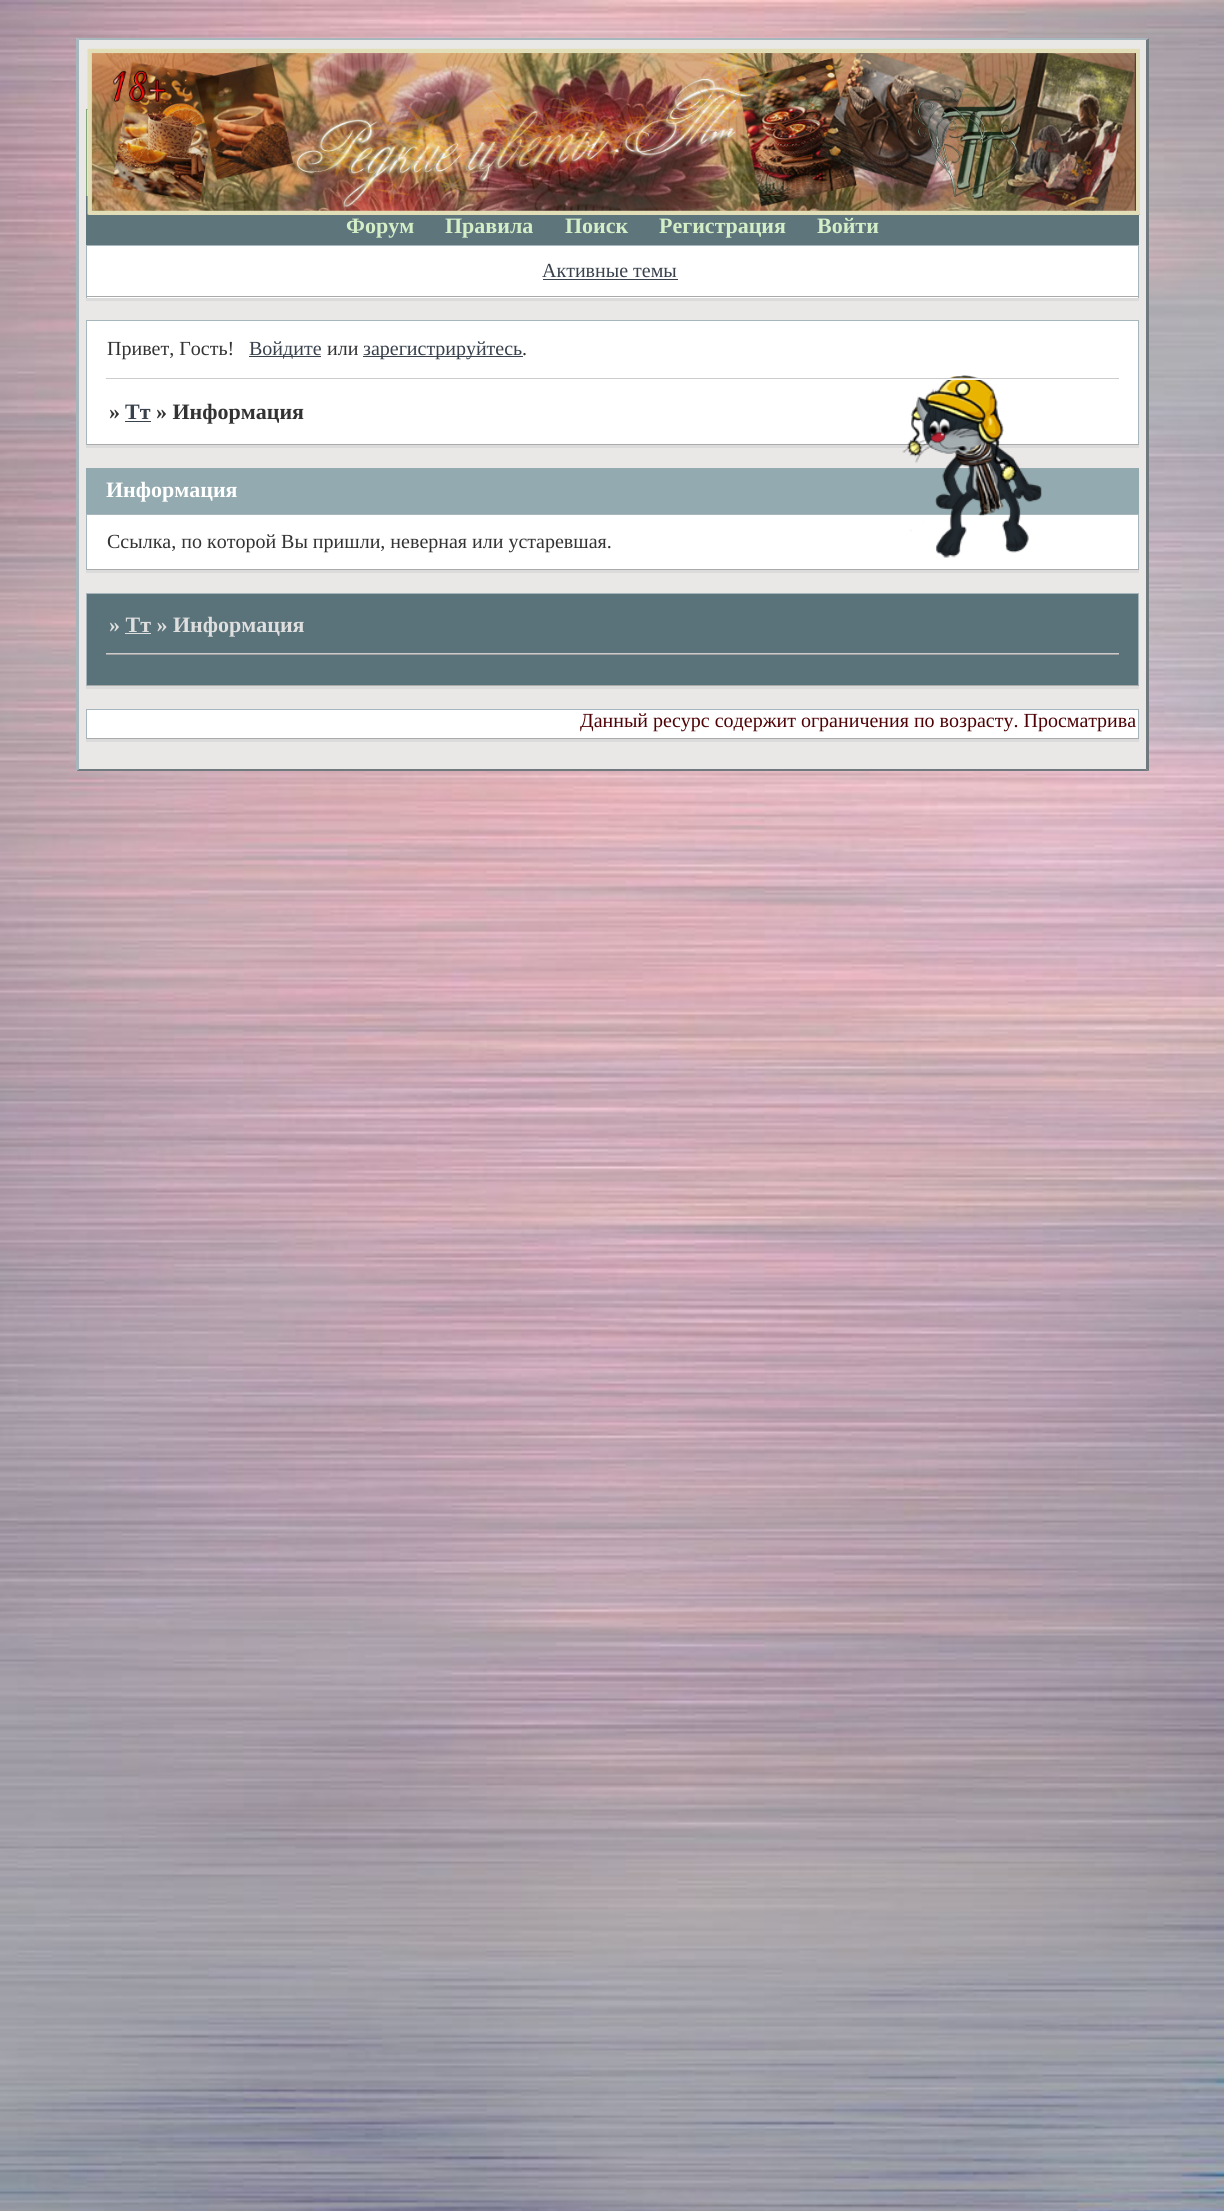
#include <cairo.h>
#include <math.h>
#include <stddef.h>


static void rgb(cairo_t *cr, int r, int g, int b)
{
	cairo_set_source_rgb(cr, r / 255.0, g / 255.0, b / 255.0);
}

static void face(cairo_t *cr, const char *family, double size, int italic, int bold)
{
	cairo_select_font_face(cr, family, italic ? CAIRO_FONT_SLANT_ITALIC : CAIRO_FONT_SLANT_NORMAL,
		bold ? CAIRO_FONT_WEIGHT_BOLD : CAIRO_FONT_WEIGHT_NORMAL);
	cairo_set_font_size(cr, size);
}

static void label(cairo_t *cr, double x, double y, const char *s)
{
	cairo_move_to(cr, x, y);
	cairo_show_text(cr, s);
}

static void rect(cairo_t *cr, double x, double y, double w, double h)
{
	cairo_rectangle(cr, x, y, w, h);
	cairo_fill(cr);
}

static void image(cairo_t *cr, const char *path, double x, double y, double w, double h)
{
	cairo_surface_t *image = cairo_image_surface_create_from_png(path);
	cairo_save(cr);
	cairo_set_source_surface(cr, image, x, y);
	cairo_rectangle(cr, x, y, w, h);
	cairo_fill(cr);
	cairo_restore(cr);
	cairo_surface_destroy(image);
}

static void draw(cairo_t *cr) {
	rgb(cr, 255, 255, 255);
	cairo_paint(cr);
	image(cr, "image0.png", 0, 0, 1224, 2211);
	image(cr, "image1.png", 0, 38, 1224, 733);
	rgb(cr, 234, 231, 231);
	rect(cr, 76, 38, 1073, 733);
	rgb(cr, 167, 181, 189);
	cairo_new_path(cr);
	cairo_move_to(cr, 76, 38);
	cairo_line_to(cr, 1149, 38);
	cairo_line_to(cr, 1146, 40);
	cairo_line_to(cr, 79, 40);
	cairo_close_path(cr);
	cairo_fill(cr);
	rgb(cr, 111, 121, 126);
	cairo_new_path(cr);
	cairo_move_to(cr, 1149, 38);
	cairo_line_to(cr, 1149, 771);
	cairo_line_to(cr, 1146, 769);
	cairo_line_to(cr, 1146, 40);
	cairo_close_path(cr);
	cairo_fill(cr);
	cairo_new_path(cr);
	cairo_move_to(cr, 1149, 771);
	cairo_line_to(cr, 76, 771);
	cairo_line_to(cr, 79, 769);
	cairo_line_to(cr, 1146, 769);
	cairo_close_path(cr);
	cairo_fill(cr);
	rgb(cr, 167, 181, 189);
	cairo_new_path(cr);
	cairo_move_to(cr, 76, 771);
	cairo_line_to(cr, 76, 38);
	cairo_line_to(cr, 79, 40);
	cairo_line_to(cr, 79, 769);
	cairo_close_path(cr);
	cairo_fill(cr);
	rgb(cr, 132, 165, 119);
	rect(cr, 86, 109, 2, 1);
	rgb(cr, 95, 117, 124);
	rect(cr, 86, 196, 1053, 49);
	image(cr, "image2.png", 87, 48, 1053, 167);
	rgb(cr, 255, 255, 255);
	rect(cr, 87, 321, 1051, 123);
	rgb(cr, 219, 219, 219);
	rect(cr, 86, 445, 1053, 3);
	rgb(cr, 167, 181, 189);
	rect(cr, 86, 320, 1053, 1);
	rect(cr, 1138, 320, 1, 125);
	rgb(cr, 170, 170, 170);
	rect(cr, 86, 444, 1053, 1);
	rgb(cr, 147, 171, 176);
	rect(cr, 86, 468, 1053, 46);
	rgb(cr, 255, 255, 255);
	rect(cr, 87, 515, 1051, 54);
	rgb(cr, 167, 181, 189);
	rect(cr, 86, 514, 1053, 1);
	image(cr, "image3.png", 902, 375, 140, 183);
	rgb(cr, 132, 165, 119);
	rect(cr, 86, 109, 1, 87);
	face(cr, "Liberation Serif", 22, 0, 1);
	rgb(cr, 212, 239, 199);
	label(cr, 346, 233, "Форум");
	label(cr, 445, 233, "Правила");
	label(cr, 565, 233, "Поиск");
	label(cr, 659, 233, "Регистрация");
	label(cr, 817, 233, "Войти");
	rgb(cr, 219, 219, 219);
	rect(cr, 86, 298, 1053, 3);
	rgb(cr, 255, 255, 255);
	rect(cr, 87, 246, 1051, 52);
	rgb(cr, 167, 181, 189);
	rect(cr, 86, 245, 1053, 1);
	rect(cr, 1138, 245, 1, 53);
	rgb(cr, 170, 170, 170);
	rect(cr, 86, 296, 1053, 1);
	rgb(cr, 167, 181, 189);
	rect(cr, 86, 245, 1, 53);
	face(cr, "Liberation Serif", 20, 0, 0);
	rgb(cr, 56, 65, 76);
	label(cr, 542, 277, "Активные темы");
	rect(cr, 543, 279, 135, 1);
	rgb(cr, 167, 181, 189);
	rect(cr, 86, 320, 1, 60);
	rgb(cr, 51, 51, 51);
	label(cr, 107, 355, "Привет, Гость!");
	rgb(cr, 56, 65, 76);
	rect(cr, 249, 356, 72, 1);
	label(cr, 249, 355, "Войдите");
	rgb(cr, 51, 51, 51);
	label(cr, 327, 355, "или");
	rgb(cr, 56, 65, 76);
	rect(cr, 363, 356, 160, 1);
	label(cr, 363, 355, "зарегистрируйтесь");
	rgb(cr, 51, 51, 51);
	label(cr, 522, 355, ".");
	rgb(cr, 204, 204, 204);
	rect(cr, 106, 378, 1013, 1);
	rgb(cr, 255, 255, 255);
	rect(cr, 946, 379, 36, 1);
	rgb(cr, 167, 181, 189);
	rect(cr, 86, 378, 1, 67);
	face(cr, "Liberation Serif", 22, 0, 1);
	rgb(cr, 51, 51, 51);
	label(cr, 109, 419, "»");
	rgb(cr, 56, 65, 76);
	label(cr, 125, 419, "Тт");
	rect(cr, 125, 421, 26, 1);
	rgb(cr, 51, 51, 51);
	label(cr, 156, 419, "» Информация");
	rgb(cr, 255, 255, 255);
	label(cr, 106, 497, "Информация");
	rgb(cr, 219, 219, 219);
	rect(cr, 86, 570, 1053, 3);
	rgb(cr, 167, 181, 189);
	rect(cr, 1138, 514, 1, 56);
	rgb(cr, 170, 170, 170);
	rect(cr, 86, 569, 1053, 1);
	rgb(cr, 167, 181, 189);
	rect(cr, 86, 514, 1, 56);
	face(cr, "Liberation Serif", 20, 0, 0);
	rgb(cr, 51, 51, 51);
	label(cr, 107, 548, "Ссылка, по которой Вы пришли, неверная или устаревшая.");
	rgb(cr, 219, 219, 219);
	rect(cr, 86, 686, 1053, 3);
	rgb(cr, 90, 114, 121);
	rect(cr, 87, 594, 1051, 91);
	rgb(cr, 167, 181, 189);
	rect(cr, 1138, 653, 1, 33);
	rgb(cr, 170, 170, 170);
	rect(cr, 86, 685, 1053, 1);
	rgb(cr, 167, 181, 189);
	rect(cr, 86, 653, 1, 33);
	rect(cr, 86, 593, 1053, 1);
	rect(cr, 1138, 593, 1, 62);
	rect(cr, 86, 593, 1, 62);
	face(cr, "Liberation Serif", 22, 0, 1);
	rgb(cr, 223, 223, 223);
	label(cr, 109, 632, "» Тт » Информация");
	rect(cr, 125, 633, 26, 1);
	rgb(cr, 204, 204, 204);
	rect(cr, 106, 653, 1013, 1);
	rgb(cr, 159, 159, 159);
	rect(cr, 106, 654, 1013, 1);
	rgb(cr, 219, 219, 219);
	rect(cr, 86, 739, 1053, 3);
	rgb(cr, 255, 255, 255);
	rect(cr, 87, 710, 1051, 28);
	rgb(cr, 167, 181, 189);
	rect(cr, 86, 709, 1053, 1);
	rect(cr, 1138, 709, 1, 30);
	rgb(cr, 170, 170, 170);
	rect(cr, 86, 738, 1053, 1);
	rgb(cr, 167, 181, 189);
	rect(cr, 86, 709, 1, 30);
	face(cr, "Liberation Serif", 20, 0, 0);
	rgb(cr, 78, 2, 5);
	label(cr, 580, 727, "Данный ресурс содержит ограничения по возрасту. Просматрива");
}

int main(void) {
	cairo_surface_t *surface = cairo_image_surface_create(CAIRO_FORMAT_RGB24, 1224, 2211);
	cairo_t *cr = cairo_create(surface);
	cairo_font_options_t *options = cairo_font_options_create();
	cairo_font_options_set_hint_metrics(options, CAIRO_HINT_METRICS_OFF);
	cairo_font_options_set_hint_style(options, CAIRO_HINT_STYLE_NONE);
	cairo_set_font_options(cr, options);
	cairo_set_miter_limit(cr, 4);
	draw(cr);
	cairo_surface_write_to_png(surface, "render.png");
	cairo_font_options_destroy(options);
	cairo_destroy(cr);
	cairo_surface_destroy(surface);
	return 0;
}
